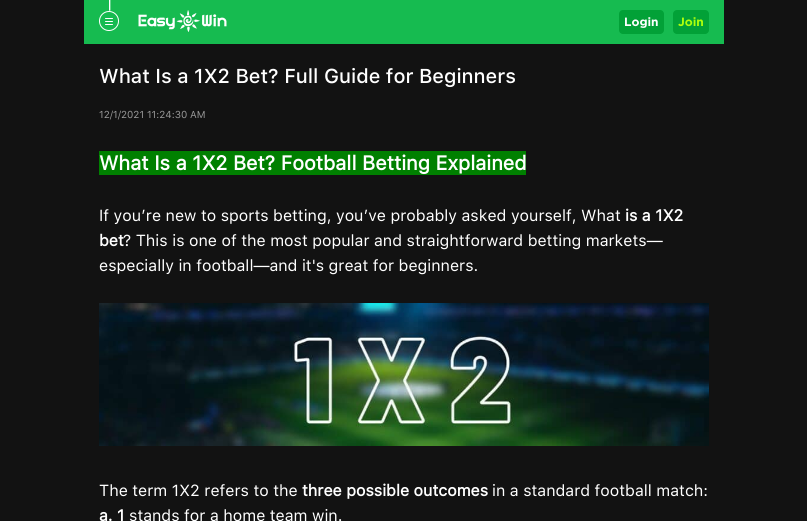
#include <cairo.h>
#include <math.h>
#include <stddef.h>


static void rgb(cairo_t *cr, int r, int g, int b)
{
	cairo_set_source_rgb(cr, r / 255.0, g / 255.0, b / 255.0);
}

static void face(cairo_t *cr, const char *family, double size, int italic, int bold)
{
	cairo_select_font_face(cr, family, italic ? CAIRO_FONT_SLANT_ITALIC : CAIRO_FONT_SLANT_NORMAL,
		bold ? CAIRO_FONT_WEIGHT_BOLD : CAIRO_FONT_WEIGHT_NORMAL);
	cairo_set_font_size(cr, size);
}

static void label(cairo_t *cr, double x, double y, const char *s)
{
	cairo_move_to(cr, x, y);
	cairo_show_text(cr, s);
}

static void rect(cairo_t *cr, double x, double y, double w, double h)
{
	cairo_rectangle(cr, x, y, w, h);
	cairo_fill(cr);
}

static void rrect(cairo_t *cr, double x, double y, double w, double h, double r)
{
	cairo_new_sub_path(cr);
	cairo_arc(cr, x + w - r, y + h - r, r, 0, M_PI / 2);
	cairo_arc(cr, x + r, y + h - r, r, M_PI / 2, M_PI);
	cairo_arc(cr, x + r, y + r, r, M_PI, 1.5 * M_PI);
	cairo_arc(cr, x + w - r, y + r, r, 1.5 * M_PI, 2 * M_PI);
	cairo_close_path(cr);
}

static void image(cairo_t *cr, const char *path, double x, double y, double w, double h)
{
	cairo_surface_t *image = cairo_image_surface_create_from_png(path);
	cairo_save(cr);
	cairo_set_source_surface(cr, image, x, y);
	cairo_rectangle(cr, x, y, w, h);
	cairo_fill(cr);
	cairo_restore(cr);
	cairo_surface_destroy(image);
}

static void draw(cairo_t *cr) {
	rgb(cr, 18, 18, 18);
	cairo_paint(cr);
	rgb(cr, 22, 187, 80);
	rect(cr, 84, 0, 640, 44);
	image(cr, "image0.png", 109, 0, 2, 11);
	image(cr, "image1.png", 99, 11, 20, 20);
	image(cr, "image2.png", 138, 10, 89, 22);
	rgb(cr, 2, 161, 55);
	rrect(cr, 619, 10, 45, 24, 4);
	cairo_fill(cr);
	face(cr, "Gotham", 12, 0, 1);
	rgb(cr, 255, 255, 255);
	label(cr, 624, 26, "Login");
	rgb(cr, 2, 161, 55);
	rrect(cr, 673, 10, 36, 24, 4);
	cairo_fill(cr);
	rgb(cr, 174, 255, 11);
	label(cr, 678, 26, "Join");
	face(cr, "SF Pro Text Medium", 20, 0, 0);
	rgb(cr, 255, 255, 255);
	label(cr, 99, 83, "What Is a 1X2 Bet? Full Guide for Beginners");
	face(cr, "SF Pro Text", 10, 0, 0);
	rgb(cr, 153, 153, 153);
	label(cr, 99, 118, "12/1/2021 11:24:30 AM");
	rgb(cr, 0, 128, 0);
	rect(cr, 99, 151, 427, 24);
	face(cr, "SF Pro Text", 20, 0, 1);
	rgb(cr, 255, 255, 255);
	label(cr, 99, 170, "What Is a 1X2 Bet? Football Betting Explained");
	face(cr, "SF Pro Text", 16, 0, 0);
	label(cr, 99, 221, "If you’re new to sports betting, you’ve probably asked yourself, What");
	face(cr, "SF Pro Text", 16, 0, 1);
	label(cr, 625, 221, "is a 1X2");
	label(cr, 99, 246, "bet");
	face(cr, "SF Pro Text", 16, 0, 0);
	label(cr, 123, 246, "? This is one of the most popular and straightforward betting markets—");
	label(cr, 99, 271, "especially in football—and it's great for beginners.");
	image(cr, "image3.png", 99, 303, 610, 143);
	label(cr, 99, 496, "The term 1X2 refers to the");
	face(cr, "SF Pro Text", 16, 0, 1);
	label(cr, 302, 496, "three possible outcomes");
	face(cr, "SF Pro Text", 16, 0, 0);
	label(cr, 492, 496, "in a standard football match:");
	face(cr, "SF Pro Text", 16, 0, 1);
	label(cr, 99, 521, "a. 1");
	face(cr, "SF Pro Text", 16, 0, 0);
	label(cr, 129, 521, "stands for a home team win.");
}

int main(void) {
	cairo_surface_t *surface = cairo_image_surface_create(CAIRO_FORMAT_RGB24, 807, 521);
	cairo_t *cr = cairo_create(surface);
	cairo_font_options_t *options = cairo_font_options_create();
	cairo_font_options_set_hint_metrics(options, CAIRO_HINT_METRICS_OFF);
	cairo_font_options_set_hint_style(options, CAIRO_HINT_STYLE_NONE);
	cairo_set_font_options(cr, options);
	cairo_set_miter_limit(cr, 4);
	draw(cr);
	cairo_surface_write_to_png(surface, "render.png");
	cairo_font_options_destroy(options);
	cairo_destroy(cr);
	cairo_surface_destroy(surface);
	return 0;
}
